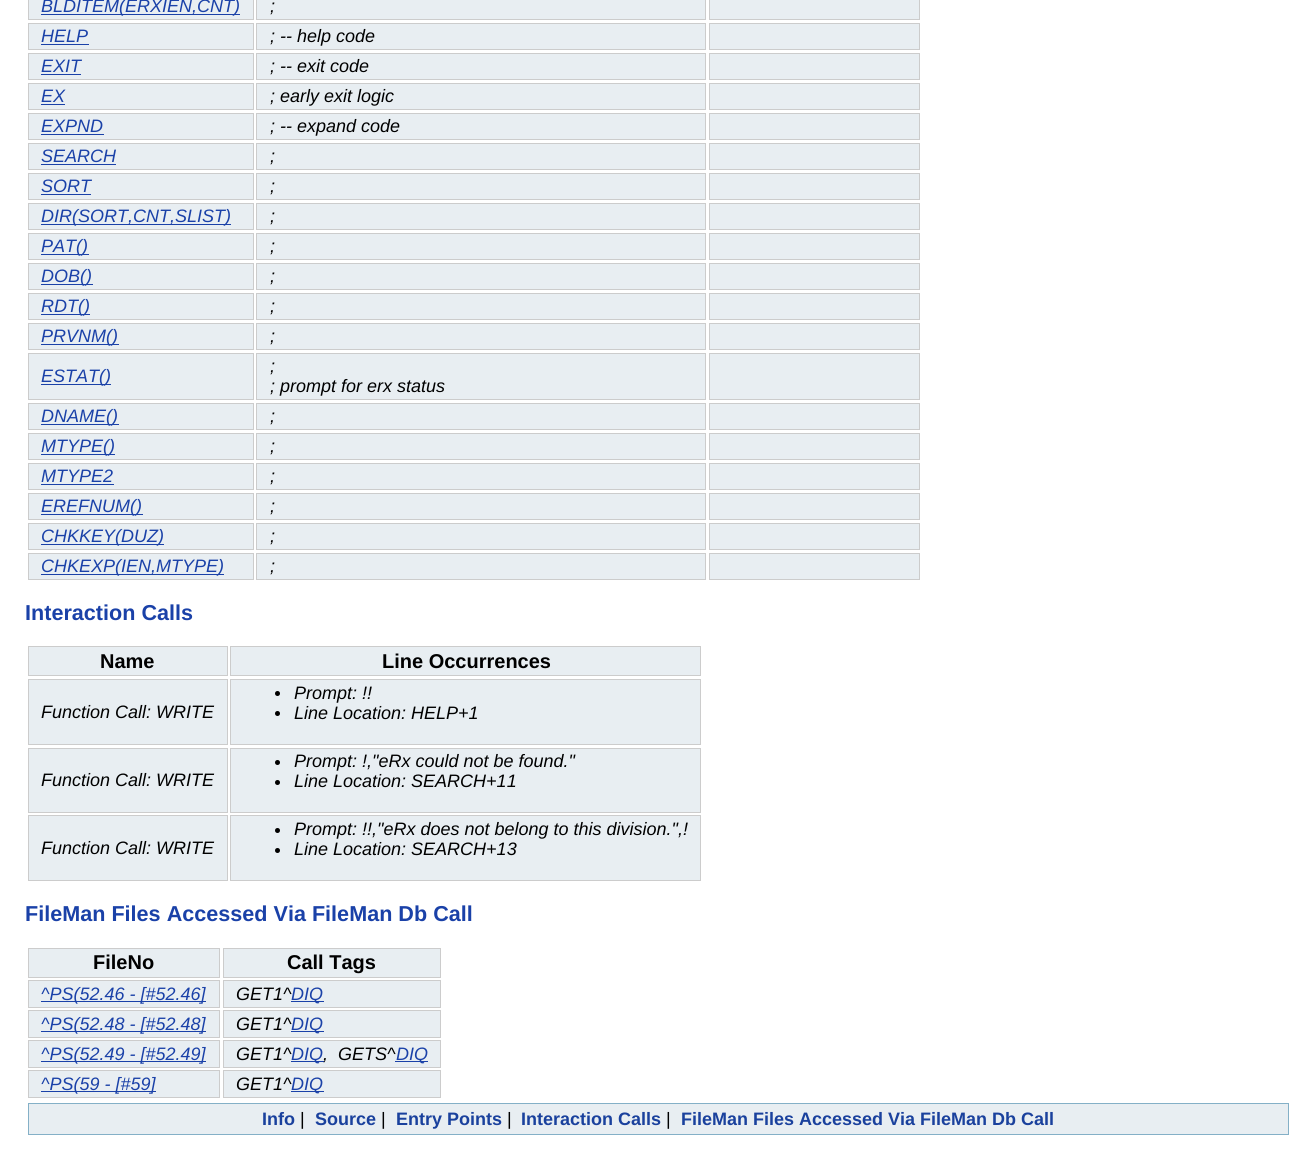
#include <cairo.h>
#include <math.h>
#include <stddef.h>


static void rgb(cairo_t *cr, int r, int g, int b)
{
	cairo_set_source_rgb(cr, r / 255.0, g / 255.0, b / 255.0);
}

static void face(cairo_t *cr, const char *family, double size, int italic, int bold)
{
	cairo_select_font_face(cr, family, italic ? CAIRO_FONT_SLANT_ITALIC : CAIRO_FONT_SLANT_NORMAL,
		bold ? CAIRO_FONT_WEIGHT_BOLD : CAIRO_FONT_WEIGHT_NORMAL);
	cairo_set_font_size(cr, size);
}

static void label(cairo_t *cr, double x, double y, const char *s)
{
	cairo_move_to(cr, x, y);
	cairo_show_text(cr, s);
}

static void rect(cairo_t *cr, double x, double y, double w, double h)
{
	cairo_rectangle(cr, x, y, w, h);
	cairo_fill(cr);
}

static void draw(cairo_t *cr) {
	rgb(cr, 255, 255, 255);
	cairo_paint(cr);
	rgb(cr, 232, 238, 242);
	cairo_rectangle(cr, 28.5, -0.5, 225, 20);
	cairo_fill_preserve(cr);
	rgb(cr, 204, 204, 204);
	cairo_set_line_width(cr, 1);
	cairo_stroke(cr);
	rgb(cr, 26, 65, 168);
	rect(cr, 41, 14, 199, 1);
	face(cr, "Liberation Sans", 18, 1, 0);
	label(cr, 41, 12, "BLDITEM(ERXIEN,CNT)");
	rgb(cr, 232, 238, 242);
	cairo_rectangle(cr, 256.5, -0.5, 449, 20);
	cairo_fill_preserve(cr);
	rgb(cr, 204, 204, 204);
	cairo_stroke(cr);
	rgb(cr, 0, 0, 0);
	label(cr, 270, 12, ";");
	rgb(cr, 232, 238, 242);
	cairo_rectangle(cr, 709.5, -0.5, 210, 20);
	cairo_fill_preserve(cr);
	rgb(cr, 204, 204, 204);
	cairo_stroke(cr);
	rgb(cr, 232, 238, 242);
	cairo_rectangle(cr, 28.5, 23.5, 225, 26);
	cairo_fill_preserve(cr);
	rgb(cr, 204, 204, 204);
	cairo_stroke(cr);
	rgb(cr, 26, 65, 168);
	label(cr, 41, 42, "HELP");
	rect(cr, 41, 44, 48, 1);
	rgb(cr, 232, 238, 242);
	cairo_rectangle(cr, 256.5, 23.5, 449, 26);
	cairo_fill_preserve(cr);
	rgb(cr, 204, 204, 204);
	cairo_stroke(cr);
	rgb(cr, 0, 0, 0);
	label(cr, 270, 42, "; -- help code");
	rgb(cr, 232, 238, 242);
	cairo_rectangle(cr, 709.5, 23.5, 210, 26);
	cairo_fill_preserve(cr);
	rgb(cr, 204, 204, 204);
	cairo_stroke(cr);
	rgb(cr, 232, 238, 242);
	cairo_rectangle(cr, 28.5, 53.5, 225, 26);
	cairo_fill_preserve(cr);
	rgb(cr, 204, 204, 204);
	cairo_stroke(cr);
	rgb(cr, 26, 65, 168);
	label(cr, 41, 72, "EXIT");
	rect(cr, 41, 74, 40, 1);
	rgb(cr, 232, 238, 242);
	cairo_rectangle(cr, 256.5, 53.5, 449, 26);
	cairo_fill_preserve(cr);
	rgb(cr, 204, 204, 204);
	cairo_stroke(cr);
	rgb(cr, 0, 0, 0);
	label(cr, 270, 72, "; -- exit code");
	rgb(cr, 232, 238, 242);
	cairo_rectangle(cr, 709.5, 53.5, 210, 26);
	cairo_fill_preserve(cr);
	rgb(cr, 204, 204, 204);
	cairo_stroke(cr);
	rgb(cr, 232, 238, 242);
	cairo_rectangle(cr, 28.5, 83.5, 225, 26);
	cairo_fill_preserve(cr);
	rgb(cr, 204, 204, 204);
	cairo_stroke(cr);
	rgb(cr, 26, 65, 168);
	label(cr, 41, 102, "EX");
	rect(cr, 41, 104, 24, 1);
	rgb(cr, 232, 238, 242);
	cairo_rectangle(cr, 256.5, 83.5, 449, 26);
	cairo_fill_preserve(cr);
	rgb(cr, 204, 204, 204);
	cairo_stroke(cr);
	rgb(cr, 0, 0, 0);
	label(cr, 270, 102, "; early exit logic");
	rgb(cr, 232, 238, 242);
	cairo_rectangle(cr, 709.5, 83.5, 210, 26);
	cairo_fill_preserve(cr);
	rgb(cr, 204, 204, 204);
	cairo_stroke(cr);
	rgb(cr, 232, 238, 242);
	cairo_rectangle(cr, 28.5, 113.5, 225, 26);
	cairo_fill_preserve(cr);
	rgb(cr, 204, 204, 204);
	cairo_stroke(cr);
	rgb(cr, 26, 65, 168);
	label(cr, 41, 132, "EXPND");
	rect(cr, 41, 134, 63, 1);
	rgb(cr, 232, 238, 242);
	cairo_rectangle(cr, 256.5, 113.5, 449, 26);
	cairo_fill_preserve(cr);
	rgb(cr, 204, 204, 204);
	cairo_stroke(cr);
	rgb(cr, 0, 0, 0);
	label(cr, 270, 132, "; -- expand code");
	rgb(cr, 232, 238, 242);
	cairo_rectangle(cr, 709.5, 113.5, 210, 26);
	cairo_fill_preserve(cr);
	rgb(cr, 204, 204, 204);
	cairo_stroke(cr);
	rgb(cr, 232, 238, 242);
	cairo_rectangle(cr, 28.5, 143.5, 225, 26);
	cairo_fill_preserve(cr);
	rgb(cr, 204, 204, 204);
	cairo_stroke(cr);
	rgb(cr, 26, 65, 168);
	label(cr, 41, 162, "SEARCH");
	rect(cr, 41, 164, 75, 1);
	rgb(cr, 232, 238, 242);
	cairo_rectangle(cr, 256.5, 143.5, 449, 26);
	cairo_fill_preserve(cr);
	rgb(cr, 204, 204, 204);
	cairo_stroke(cr);
	rgb(cr, 0, 0, 0);
	label(cr, 270, 162, ";");
	rgb(cr, 232, 238, 242);
	cairo_rectangle(cr, 709.5, 143.5, 210, 26);
	cairo_fill_preserve(cr);
	rgb(cr, 204, 204, 204);
	cairo_stroke(cr);
	rgb(cr, 232, 238, 242);
	cairo_rectangle(cr, 28.5, 173.5, 225, 26);
	cairo_fill_preserve(cr);
	rgb(cr, 204, 204, 204);
	cairo_stroke(cr);
	rgb(cr, 26, 65, 168);
	label(cr, 41, 192, "SORT");
	rect(cr, 41, 194, 50, 1);
	rgb(cr, 232, 238, 242);
	cairo_rectangle(cr, 256.5, 173.5, 449, 26);
	cairo_fill_preserve(cr);
	rgb(cr, 204, 204, 204);
	cairo_stroke(cr);
	rgb(cr, 0, 0, 0);
	label(cr, 270, 192, ";");
	rgb(cr, 232, 238, 242);
	cairo_rectangle(cr, 709.5, 173.5, 210, 26);
	cairo_fill_preserve(cr);
	rgb(cr, 204, 204, 204);
	cairo_stroke(cr);
	rgb(cr, 232, 238, 242);
	cairo_rectangle(cr, 28.5, 203.5, 225, 26);
	cairo_fill_preserve(cr);
	rgb(cr, 204, 204, 204);
	cairo_stroke(cr);
	rgb(cr, 26, 65, 168);
	rect(cr, 41, 224, 190, 1);
	label(cr, 41, 222, "DIR(SORT,CNT,SLIST)");
	rgb(cr, 232, 238, 242);
	cairo_rectangle(cr, 256.5, 203.5, 449, 26);
	cairo_fill_preserve(cr);
	rgb(cr, 204, 204, 204);
	cairo_stroke(cr);
	rgb(cr, 0, 0, 0);
	label(cr, 270, 222, ";");
	rgb(cr, 232, 238, 242);
	cairo_rectangle(cr, 709.5, 203.5, 210, 26);
	cairo_fill_preserve(cr);
	rgb(cr, 204, 204, 204);
	cairo_stroke(cr);
	rgb(cr, 232, 238, 242);
	cairo_rectangle(cr, 28.5, 233.5, 225, 26);
	cairo_fill_preserve(cr);
	rgb(cr, 204, 204, 204);
	cairo_stroke(cr);
	rgb(cr, 26, 65, 168);
	rect(cr, 41, 254, 48, 1);
	label(cr, 41, 252, "PAT()");
	rgb(cr, 232, 238, 242);
	cairo_rectangle(cr, 256.5, 233.5, 449, 26);
	cairo_fill_preserve(cr);
	rgb(cr, 204, 204, 204);
	cairo_stroke(cr);
	rgb(cr, 0, 0, 0);
	label(cr, 270, 252, ";");
	rgb(cr, 232, 238, 242);
	cairo_rectangle(cr, 709.5, 233.5, 210, 26);
	cairo_fill_preserve(cr);
	rgb(cr, 204, 204, 204);
	cairo_stroke(cr);
	rgb(cr, 232, 238, 242);
	cairo_rectangle(cr, 28.5, 263.5, 225, 26);
	cairo_fill_preserve(cr);
	rgb(cr, 204, 204, 204);
	cairo_stroke(cr);
	rgb(cr, 26, 65, 168);
	rect(cr, 41, 284, 52, 1);
	label(cr, 41, 282, "DOB()");
	rgb(cr, 232, 238, 242);
	cairo_rectangle(cr, 256.5, 263.5, 449, 26);
	cairo_fill_preserve(cr);
	rgb(cr, 204, 204, 204);
	cairo_stroke(cr);
	rgb(cr, 0, 0, 0);
	label(cr, 270, 282, ";");
	rgb(cr, 232, 238, 242);
	cairo_rectangle(cr, 709.5, 263.5, 210, 26);
	cairo_fill_preserve(cr);
	rgb(cr, 204, 204, 204);
	cairo_stroke(cr);
	rgb(cr, 232, 238, 242);
	cairo_rectangle(cr, 28.5, 293.5, 225, 26);
	cairo_fill_preserve(cr);
	rgb(cr, 204, 204, 204);
	cairo_stroke(cr);
	rgb(cr, 26, 65, 168);
	rect(cr, 41, 314, 49, 1);
	label(cr, 41, 312, "RDT()");
	rgb(cr, 232, 238, 242);
	cairo_rectangle(cr, 256.5, 293.5, 449, 26);
	cairo_fill_preserve(cr);
	rgb(cr, 204, 204, 204);
	cairo_stroke(cr);
	rgb(cr, 0, 0, 0);
	label(cr, 270, 312, ";");
	rgb(cr, 232, 238, 242);
	cairo_rectangle(cr, 709.5, 293.5, 210, 26);
	cairo_fill_preserve(cr);
	rgb(cr, 204, 204, 204);
	cairo_stroke(cr);
	rgb(cr, 232, 238, 242);
	cairo_rectangle(cr, 28.5, 323.5, 225, 26);
	cairo_fill_preserve(cr);
	rgb(cr, 204, 204, 204);
	cairo_stroke(cr);
	rgb(cr, 26, 65, 168);
	rect(cr, 41, 344, 78, 1);
	label(cr, 41, 342, "PRVNM()");
	rgb(cr, 232, 238, 242);
	cairo_rectangle(cr, 256.5, 323.5, 449, 26);
	cairo_fill_preserve(cr);
	rgb(cr, 204, 204, 204);
	cairo_stroke(cr);
	rgb(cr, 0, 0, 0);
	label(cr, 270, 342, ";");
	rgb(cr, 232, 238, 242);
	cairo_rectangle(cr, 709.5, 323.5, 210, 26);
	cairo_fill_preserve(cr);
	rgb(cr, 204, 204, 204);
	cairo_stroke(cr);
	rgb(cr, 232, 238, 242);
	cairo_rectangle(cr, 28.5, 353.5, 225, 46);
	cairo_fill_preserve(cr);
	rgb(cr, 204, 204, 204);
	cairo_stroke(cr);
	rgb(cr, 26, 65, 168);
	rect(cr, 41, 384, 70, 1);
	label(cr, 41, 382, "ESTAT()");
	rgb(cr, 232, 238, 242);
	cairo_rectangle(cr, 256.5, 353.5, 449, 46);
	cairo_fill_preserve(cr);
	rgb(cr, 204, 204, 204);
	cairo_stroke(cr);
	rgb(cr, 0, 0, 0);
	label(cr, 270, 372, ";");
	label(cr, 270, 392, "; prompt for erx status");
	rgb(cr, 232, 238, 242);
	cairo_rectangle(cr, 709.5, 353.5, 210, 46);
	cairo_fill_preserve(cr);
	rgb(cr, 204, 204, 204);
	cairo_stroke(cr);
	rgb(cr, 232, 238, 242);
	cairo_rectangle(cr, 28.5, 403.5, 225, 26);
	cairo_fill_preserve(cr);
	rgb(cr, 204, 204, 204);
	cairo_stroke(cr);
	rgb(cr, 26, 65, 168);
	rect(cr, 41, 424, 78, 1);
	label(cr, 41, 422, "DNAME()");
	rgb(cr, 232, 238, 242);
	cairo_rectangle(cr, 256.5, 403.5, 449, 26);
	cairo_fill_preserve(cr);
	rgb(cr, 204, 204, 204);
	cairo_stroke(cr);
	rgb(cr, 0, 0, 0);
	label(cr, 270, 422, ";");
	rgb(cr, 232, 238, 242);
	cairo_rectangle(cr, 709.5, 403.5, 210, 26);
	cairo_fill_preserve(cr);
	rgb(cr, 204, 204, 204);
	cairo_stroke(cr);
	rgb(cr, 232, 238, 242);
	cairo_rectangle(cr, 28.5, 433.5, 225, 26);
	cairo_fill_preserve(cr);
	rgb(cr, 204, 204, 204);
	cairo_stroke(cr);
	rgb(cr, 26, 65, 168);
	rect(cr, 41, 454, 74, 1);
	label(cr, 41, 452, "MTYPE()");
	rgb(cr, 232, 238, 242);
	cairo_rectangle(cr, 256.5, 433.5, 449, 26);
	cairo_fill_preserve(cr);
	rgb(cr, 204, 204, 204);
	cairo_stroke(cr);
	rgb(cr, 0, 0, 0);
	label(cr, 270, 452, ";");
	rgb(cr, 232, 238, 242);
	cairo_rectangle(cr, 709.5, 433.5, 210, 26);
	cairo_fill_preserve(cr);
	rgb(cr, 204, 204, 204);
	cairo_stroke(cr);
	rgb(cr, 232, 238, 242);
	cairo_rectangle(cr, 28.5, 463.5, 225, 26);
	cairo_fill_preserve(cr);
	rgb(cr, 204, 204, 204);
	cairo_stroke(cr);
	rgb(cr, 26, 65, 168);
	label(cr, 41, 482, "MTYPE2");
	rect(cr, 41, 484, 73, 1);
	rgb(cr, 232, 238, 242);
	cairo_rectangle(cr, 256.5, 463.5, 449, 26);
	cairo_fill_preserve(cr);
	rgb(cr, 204, 204, 204);
	cairo_stroke(cr);
	rgb(cr, 0, 0, 0);
	label(cr, 270, 482, ";");
	rgb(cr, 232, 238, 242);
	cairo_rectangle(cr, 709.5, 463.5, 210, 26);
	cairo_fill_preserve(cr);
	rgb(cr, 204, 204, 204);
	cairo_stroke(cr);
	rgb(cr, 232, 238, 242);
	cairo_rectangle(cr, 28.5, 493.5, 225, 26);
	cairo_fill_preserve(cr);
	rgb(cr, 204, 204, 204);
	cairo_stroke(cr);
	rgb(cr, 26, 65, 168);
	rect(cr, 41, 514, 102, 1);
	label(cr, 41, 512, "EREFNUM()");
	rgb(cr, 232, 238, 242);
	cairo_rectangle(cr, 256.5, 493.5, 449, 26);
	cairo_fill_preserve(cr);
	rgb(cr, 204, 204, 204);
	cairo_stroke(cr);
	rgb(cr, 0, 0, 0);
	label(cr, 270, 512, ";");
	rgb(cr, 232, 238, 242);
	cairo_rectangle(cr, 709.5, 493.5, 210, 26);
	cairo_fill_preserve(cr);
	rgb(cr, 204, 204, 204);
	cairo_stroke(cr);
	rgb(cr, 232, 238, 242);
	cairo_rectangle(cr, 28.5, 523.5, 225, 26);
	cairo_fill_preserve(cr);
	rgb(cr, 204, 204, 204);
	cairo_stroke(cr);
	rgb(cr, 26, 65, 168);
	rect(cr, 41, 544, 123, 1);
	label(cr, 41, 542, "CHKKEY(DUZ)");
	rgb(cr, 232, 238, 242);
	cairo_rectangle(cr, 256.5, 523.5, 449, 26);
	cairo_fill_preserve(cr);
	rgb(cr, 204, 204, 204);
	cairo_stroke(cr);
	rgb(cr, 0, 0, 0);
	label(cr, 270, 542, ";");
	rgb(cr, 232, 238, 242);
	cairo_rectangle(cr, 709.5, 523.5, 210, 26);
	cairo_fill_preserve(cr);
	rgb(cr, 204, 204, 204);
	cairo_stroke(cr);
	rgb(cr, 232, 238, 242);
	cairo_rectangle(cr, 28.5, 553.5, 225, 26);
	cairo_fill_preserve(cr);
	rgb(cr, 204, 204, 204);
	cairo_stroke(cr);
	rgb(cr, 26, 65, 168);
	rect(cr, 41, 574, 183, 1);
	label(cr, 41, 572, "CHKEXP(IEN,MTYPE)");
	rgb(cr, 232, 238, 242);
	cairo_rectangle(cr, 256.5, 553.5, 449, 26);
	cairo_fill_preserve(cr);
	rgb(cr, 204, 204, 204);
	cairo_stroke(cr);
	rgb(cr, 0, 0, 0);
	label(cr, 270, 572, ";");
	rgb(cr, 232, 238, 242);
	cairo_rectangle(cr, 709.5, 553.5, 210, 26);
	cairo_fill_preserve(cr);
	rgb(cr, 204, 204, 204);
	cairo_stroke(cr);
	face(cr, "Liberation Sans", 21.6, 0, 1);
	rgb(cr, 26, 65, 168);
	label(cr, 25, 620, "Interaction Calls");
	rgb(cr, 232, 238, 242);
	cairo_rectangle(cr, 28.5, 646.5, 199, 29);
	cairo_fill_preserve(cr);
	rgb(cr, 204, 204, 204);
	cairo_stroke(cr);
	face(cr, "Liberation Sans", 20, 0, 1);
	rgb(cr, 0, 0, 0);
	label(cr, 100, 668, "Name");
	rgb(cr, 232, 238, 242);
	cairo_rectangle(cr, 230.5, 646.5, 470, 29);
	cairo_fill_preserve(cr);
	rgb(cr, 204, 204, 204);
	cairo_stroke(cr);
	rgb(cr, 0, 0, 0);
	label(cr, 382, 668, "Line Occurrences");
	rgb(cr, 232, 238, 242);
	cairo_rectangle(cr, 28.5, 679.5, 199, 65);
	cairo_fill_preserve(cr);
	rgb(cr, 204, 204, 204);
	cairo_stroke(cr);
	face(cr, "Liberation Sans", 18, 1, 0);
	rgb(cr, 0, 0, 0);
	label(cr, 41, 718, "Function Call: WRITE");
	rgb(cr, 232, 238, 242);
	cairo_rectangle(cr, 230.5, 679.5, 470, 65);
	cairo_fill_preserve(cr);
	rgb(cr, 204, 204, 204);
	cairo_stroke(cr);
	rgb(cr, 0, 0, 0);
	cairo_arc(cr, 277.5, 693.5, 2.5, 0, 2 * M_PI);
	cairo_fill(cr);
	label(cr, 294, 699, "Prompt: !!");
	cairo_new_path(cr);
	cairo_arc(cr, 277.5, 713.5, 2.5, 0, 2 * M_PI);
	cairo_fill(cr);
	label(cr, 294, 719, "Line Location: HELP+1");
	rgb(cr, 232, 238, 242);
	cairo_rectangle(cr, 28.5, 748.5, 199, 64);
	cairo_fill_preserve(cr);
	rgb(cr, 204, 204, 204);
	cairo_stroke(cr);
	rgb(cr, 0, 0, 0);
	label(cr, 41, 786, "Function Call: WRITE");
	rgb(cr, 232, 238, 242);
	cairo_rectangle(cr, 230.5, 748.5, 470, 64);
	cairo_fill_preserve(cr);
	rgb(cr, 204, 204, 204);
	cairo_stroke(cr);
	rgb(cr, 0, 0, 0);
	cairo_arc(cr, 277.5, 762.5, 2.5, 0, 2 * M_PI);
	cairo_fill(cr);
	label(cr, 294, 767, "Prompt: !,\"eRx could not be found.\"");
	cairo_new_path(cr);
	cairo_arc(cr, 277.5, 782.5, 2.5, 0, 2 * M_PI);
	cairo_fill(cr);
	label(cr, 294, 787, "Line Location: SEARCH+11");
	rgb(cr, 232, 238, 242);
	cairo_rectangle(cr, 28.5, 815.5, 199, 65);
	cairo_fill_preserve(cr);
	rgb(cr, 204, 204, 204);
	cairo_stroke(cr);
	rgb(cr, 0, 0, 0);
	label(cr, 41, 854, "Function Call: WRITE");
	rgb(cr, 232, 238, 242);
	cairo_rectangle(cr, 230.5, 815.5, 470, 65);
	cairo_fill_preserve(cr);
	rgb(cr, 204, 204, 204);
	cairo_stroke(cr);
	rgb(cr, 0, 0, 0);
	cairo_arc(cr, 277.5, 830.5, 2.5, 0, 2 * M_PI);
	cairo_fill(cr);
	label(cr, 294, 835, "Prompt: !!,\"eRx does not belong to this division.\",!");
	cairo_new_path(cr);
	cairo_arc(cr, 277.5, 850.5, 2.5, 0, 2 * M_PI);
	cairo_fill(cr);
	label(cr, 294, 855, "Line Location: SEARCH+13");
	face(cr, "Liberation Sans", 21.6, 0, 1);
	rgb(cr, 26, 65, 168);
	label(cr, 25, 921, "FileMan Files Accessed Via FileMan Db Call");
	rgb(cr, 232, 238, 242);
	cairo_rectangle(cr, 28.5, 948.5, 191, 29);
	cairo_fill_preserve(cr);
	rgb(cr, 204, 204, 204);
	cairo_stroke(cr);
	face(cr, "Liberation Sans", 20, 0, 1);
	rgb(cr, 0, 0, 0);
	label(cr, 93, 969, "FileNo");
	rgb(cr, 232, 238, 242);
	cairo_rectangle(cr, 223.5, 948.5, 217, 29);
	cairo_fill_preserve(cr);
	rgb(cr, 204, 204, 204);
	cairo_stroke(cr);
	rgb(cr, 0, 0, 0);
	label(cr, 287, 969, "Call Tags");
	rgb(cr, 232, 238, 242);
	cairo_rectangle(cr, 28.5, 980.5, 191, 27);
	cairo_fill_preserve(cr);
	rgb(cr, 204, 204, 204);
	cairo_stroke(cr);
	rgb(cr, 26, 65, 168);
	rect(cr, 41, 1001, 165, 1);
	face(cr, "Liberation Sans", 18, 1, 0);
	label(cr, 41, 1000, "^PS(52.46 - [#52.46]");
	rgb(cr, 232, 238, 242);
	cairo_rectangle(cr, 223.5, 980.5, 217, 27);
	cairo_fill_preserve(cr);
	rgb(cr, 204, 204, 204);
	cairo_stroke(cr);
	rgb(cr, 0, 0, 0);
	label(cr, 236, 1000, "GET1^");
	rgb(cr, 26, 65, 168);
	rect(cr, 291, 1001, 33, 1);
	label(cr, 291, 1000, "DIQ");
	rgb(cr, 232, 238, 242);
	cairo_rectangle(cr, 28.5, 1010.5, 191, 27);
	cairo_fill_preserve(cr);
	rgb(cr, 204, 204, 204);
	cairo_stroke(cr);
	rgb(cr, 26, 65, 168);
	rect(cr, 41, 1031, 165, 1);
	label(cr, 41, 1030, "^PS(52.48 - [#52.48]");
	rgb(cr, 232, 238, 242);
	cairo_rectangle(cr, 223.5, 1010.5, 217, 27);
	cairo_fill_preserve(cr);
	rgb(cr, 204, 204, 204);
	cairo_stroke(cr);
	rgb(cr, 0, 0, 0);
	label(cr, 236, 1030, "GET1^");
	rgb(cr, 26, 65, 168);
	rect(cr, 291, 1031, 33, 1);
	label(cr, 291, 1030, "DIQ");
	rgb(cr, 232, 238, 242);
	cairo_rectangle(cr, 28.5, 1040.5, 191, 27);
	cairo_fill_preserve(cr);
	rgb(cr, 204, 204, 204);
	cairo_stroke(cr);
	rgb(cr, 26, 65, 168);
	rect(cr, 41, 1061, 165, 1);
	label(cr, 41, 1060, "^PS(52.49 - [#52.49]");
	rgb(cr, 232, 238, 242);
	cairo_rectangle(cr, 223.5, 1040.5, 217, 27);
	cairo_fill_preserve(cr);
	rgb(cr, 204, 204, 204);
	cairo_stroke(cr);
	rgb(cr, 0, 0, 0);
	label(cr, 236, 1060, "GET1^");
	rgb(cr, 26, 65, 168);
	rect(cr, 291, 1061, 33, 1);
	label(cr, 291, 1060, "DIQ");
	rgb(cr, 0, 0, 0);
	label(cr, 323, 1060, ",  GETS^");
	rgb(cr, 26, 65, 168);
	rect(cr, 395, 1061, 33, 1);
	label(cr, 396, 1060, "DIQ");
	rgb(cr, 232, 238, 242);
	cairo_rectangle(cr, 28.5, 1070.5, 191, 27);
	cairo_fill_preserve(cr);
	rgb(cr, 204, 204, 204);
	cairo_stroke(cr);
	rgb(cr, 26, 65, 168);
	rect(cr, 41, 1091, 115, 1);
	label(cr, 41, 1090, "^PS(59 - [#59]");
	rgb(cr, 232, 238, 242);
	cairo_rectangle(cr, 223.5, 1070.5, 217, 27);
	cairo_fill_preserve(cr);
	rgb(cr, 204, 204, 204);
	cairo_stroke(cr);
	rgb(cr, 0, 0, 0);
	label(cr, 236, 1090, "GET1^");
	rgb(cr, 26, 65, 168);
	rect(cr, 291, 1091, 33, 1);
	label(cr, 291, 1090, "DIQ");
	rgb(cr, 232, 238, 242);
	cairo_rectangle(cr, 28.5, 1103.5, 1260, 31);
	cairo_fill_preserve(cr);
	rgb(cr, 132, 176, 199);
	cairo_stroke(cr);
	face(cr, "Liberation Sans", 18, 0, 1);
	rgb(cr, 26, 65, 157);
	label(cr, 262, 1125, "Info");
	face(cr, "Liberation Sans", 18, 0, 0);
	rgb(cr, 0, 0, 0);
	label(cr, 300, 1125, "|");
	face(cr, "Liberation Sans", 18, 0, 1);
	rgb(cr, 26, 65, 157);
	label(cr, 315, 1125, "Source");
	face(cr, "Liberation Sans", 18, 0, 0);
	rgb(cr, 0, 0, 0);
	label(cr, 381, 1125, "|");
	face(cr, "Liberation Sans", 18, 0, 1);
	rgb(cr, 26, 65, 157);
	label(cr, 396, 1125, "Entry Points");
	face(cr, "Liberation Sans", 18, 0, 0);
	rgb(cr, 0, 0, 0);
	label(cr, 507, 1125, "|");
	face(cr, "Liberation Sans", 18, 0, 1);
	rgb(cr, 26, 65, 157);
	label(cr, 521, 1125, "Interaction Calls");
	face(cr, "Liberation Sans", 18, 0, 0);
	rgb(cr, 0, 0, 0);
	label(cr, 666, 1125, "|");
	face(cr, "Liberation Sans", 18, 0, 1);
	rgb(cr, 26, 65, 157);
	label(cr, 681, 1125, "FileMan Files Accessed Via FileMan Db Call");
}

int main(void) {
	cairo_surface_t *surface = cairo_image_surface_create(CAIRO_FORMAT_RGB24, 1303, 1174);
	cairo_t *cr = cairo_create(surface);
	cairo_font_options_t *options = cairo_font_options_create();
	cairo_font_options_set_hint_metrics(options, CAIRO_HINT_METRICS_OFF);
	cairo_font_options_set_hint_style(options, CAIRO_HINT_STYLE_NONE);
	cairo_set_font_options(cr, options);
	cairo_set_miter_limit(cr, 4);
	draw(cr);
	cairo_surface_write_to_png(surface, "render.png");
	cairo_font_options_destroy(options);
	cairo_destroy(cr);
	cairo_surface_destroy(surface);
	return 0;
}
